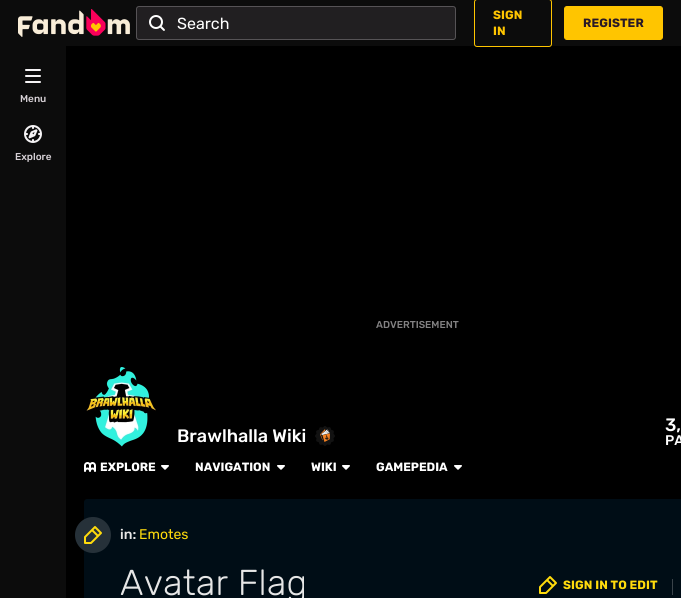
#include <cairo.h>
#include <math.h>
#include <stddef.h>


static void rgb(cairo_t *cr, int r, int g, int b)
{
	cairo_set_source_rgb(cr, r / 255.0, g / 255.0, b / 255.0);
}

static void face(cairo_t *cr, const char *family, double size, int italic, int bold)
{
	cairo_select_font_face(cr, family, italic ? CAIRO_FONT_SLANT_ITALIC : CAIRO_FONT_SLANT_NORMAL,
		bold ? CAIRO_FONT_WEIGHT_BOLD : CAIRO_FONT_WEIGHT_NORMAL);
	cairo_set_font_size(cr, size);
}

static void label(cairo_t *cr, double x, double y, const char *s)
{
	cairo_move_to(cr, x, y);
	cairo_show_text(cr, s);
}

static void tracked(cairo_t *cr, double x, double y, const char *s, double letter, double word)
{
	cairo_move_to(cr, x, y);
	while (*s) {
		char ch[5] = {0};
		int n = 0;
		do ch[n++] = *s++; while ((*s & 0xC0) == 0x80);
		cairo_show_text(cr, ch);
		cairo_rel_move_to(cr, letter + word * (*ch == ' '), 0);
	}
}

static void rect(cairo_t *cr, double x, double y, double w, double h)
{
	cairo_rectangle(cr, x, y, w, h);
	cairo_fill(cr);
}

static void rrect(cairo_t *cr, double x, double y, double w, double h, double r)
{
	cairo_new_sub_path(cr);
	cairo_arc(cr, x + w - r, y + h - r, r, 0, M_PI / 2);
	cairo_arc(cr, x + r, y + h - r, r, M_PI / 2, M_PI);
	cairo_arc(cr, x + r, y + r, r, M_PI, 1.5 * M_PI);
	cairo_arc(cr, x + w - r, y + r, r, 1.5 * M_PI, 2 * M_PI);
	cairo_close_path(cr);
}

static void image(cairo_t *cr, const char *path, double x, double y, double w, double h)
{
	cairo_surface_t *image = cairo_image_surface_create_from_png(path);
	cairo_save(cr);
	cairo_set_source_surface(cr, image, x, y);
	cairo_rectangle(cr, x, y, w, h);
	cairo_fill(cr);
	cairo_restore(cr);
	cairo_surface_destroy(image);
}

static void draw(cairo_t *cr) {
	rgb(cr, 0, 0, 0);
	cairo_paint(cr);
	rgb(cr, 12, 12, 12);
	rect(cr, 0, 0, 681, 46);
	image(cr, "image0.png", 18, 9, 112, 28);
	rgb(cr, 33, 31, 33);
	rrect(cr, 136, 6, 320, 34, 3);
	cairo_fill(cr);
	rrect(cr, 136.5, 6.5, 319, 33, 2.5);
	cairo_set_source_rgba(cr, 0.961, 0.953, 0.961, 0.25);
	cairo_set_line_width(cr, 1);
	cairo_stroke(cr);
	image(cr, "image1.png", 149, 15, 16, 16);
	face(cr, "Rubik", 16, 0, 0);
	rgb(cr, 255, 255, 255);
	label(cr, 177, 29, "Search");
	rrect(cr, 474.5, -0.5, 77, 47, 2.5);
	rgb(cr, 255, 197, 0);
	cairo_stroke(cr);
	face(cr, "Rubik", 12, 0, 1);
	tracked(cr, 493, 19, "SIGN", 0.1, 0);
	tracked(cr, 493, 35, "IN", 0.1, 0);
	rrect(cr, 564.5, 6.5, 98, 33, 2.5);
	cairo_fill_preserve(cr);
	cairo_stroke(cr);
	rgb(cr, 41, 25, 39);
	tracked(cr, 583, 27, "REGISTER", 0.1, 0);
	rgb(cr, 12, 12, 12);
	rect(cr, 0, 46, 66, 552);
	image(cr, "image2.png", 25, 69, 16, 14);
	face(cr, "Rubik Medium", 10, 0, 0);
	rgb(cr, 214, 208, 213);
	label(cr, 20, 102, "Menu");
	image(cr, "image3.png", 24, 125, 18, 18);
	label(cr, 15, 160, "Explore");
	rgb(cr, 131, 130, 131);
	label(cr, 376, 328, "ADVERTISEMENT");
	image(cr, "image4.png", 86, 367, 70, 80);
	face(cr, "Rubik Medium", 18, 0, 0);
	rgb(cr, 255, 255, 255);
	label(cr, 177, 442, "Brawlhalla Wiki");
	image(cr, "image5.png", 315, 426, 20, 20);
	label(cr, 665, 431, "3,");
	face(cr, "Rubik Medium", 14, 0, 0);
	label(cr, 665, 445, "PA");
	image(cr, "image6.png", 84, 462, 12, 10);
	face(cr, "Rubik", 12, 0, 1);
	label(cr, 100, 471, "EXPLORE");
	image(cr, "image7.png", 161, 465, 8, 5);
	label(cr, 195, 471, "NAVIGATION");
	image(cr, "image7.png", 277, 465, 8, 5);
	label(cr, 311, 471, "WIKI");
	image(cr, "image7.png", 342, 465, 8, 5);
	label(cr, 376, 471, "GAMEPEDIA");
	image(cr, "image7.png", 454, 465, 8, 5);
	rgb(cr, 0, 13, 22);
	cairo_new_path(cr);
	cairo_move_to(cr, 87, 499);
	cairo_line_to(cr, 681, 499);
	cairo_curve_to(cr, 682.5, 499, 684, 500.5, 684, 502);
	cairo_line_to(cr, 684, 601);
	cairo_line_to(cr, 84, 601);
	cairo_line_to(cr, 84, 502);
	cairo_curve_to(cr, 84, 500.5, 85.5, 499, 87, 499);
	cairo_close_path(cr);
	cairo_fill(cr);
	rgb(cr, 38, 49, 57);
	cairo_arc(cr, 93, 535, 18, 0, 2 * M_PI);
	cairo_fill(cr);
	image(cr, "image8.png", 84, 526, 18, 18);
	face(cr, "Rubik Medium", 14, 0, 0);
	rgb(cr, 230, 230, 230);
	label(cr, 120, 539, "in:");
	face(cr, "Rubik", 14, 0, 0);
	rgb(cr, 255, 219, 12);
	label(cr, 139, 539, "Emotes");
	face(cr, "Rubik Light", 36, 0, 0);
	rgb(cr, 230, 230, 230);
	tracked(cr, 120, 595, "Avatar Flag", 0.25, 0);
	image(cr, "image9.png", 539, 576, 18, 18);
	face(cr, "Rubik", 12, 0, 1);
	rgb(cr, 255, 219, 12);
	tracked(cr, 563, 589, "SIGN IN TO EDIT", 0.1, 0);
	rgb(cr, 58, 67, 74);
	rect(cr, 672, 579, 1, 16);
}

int main(void) {
	cairo_surface_t *surface = cairo_image_surface_create(CAIRO_FORMAT_RGB24, 681, 598);
	cairo_t *cr = cairo_create(surface);
	cairo_font_options_t *options = cairo_font_options_create();
	cairo_font_options_set_hint_metrics(options, CAIRO_HINT_METRICS_OFF);
	cairo_font_options_set_hint_style(options, CAIRO_HINT_STYLE_NONE);
	cairo_set_font_options(cr, options);
	cairo_set_miter_limit(cr, 4);
	draw(cr);
	cairo_surface_write_to_png(surface, "render.png");
	cairo_font_options_destroy(options);
	cairo_destroy(cr);
	cairo_surface_destroy(surface);
	return 0;
}
